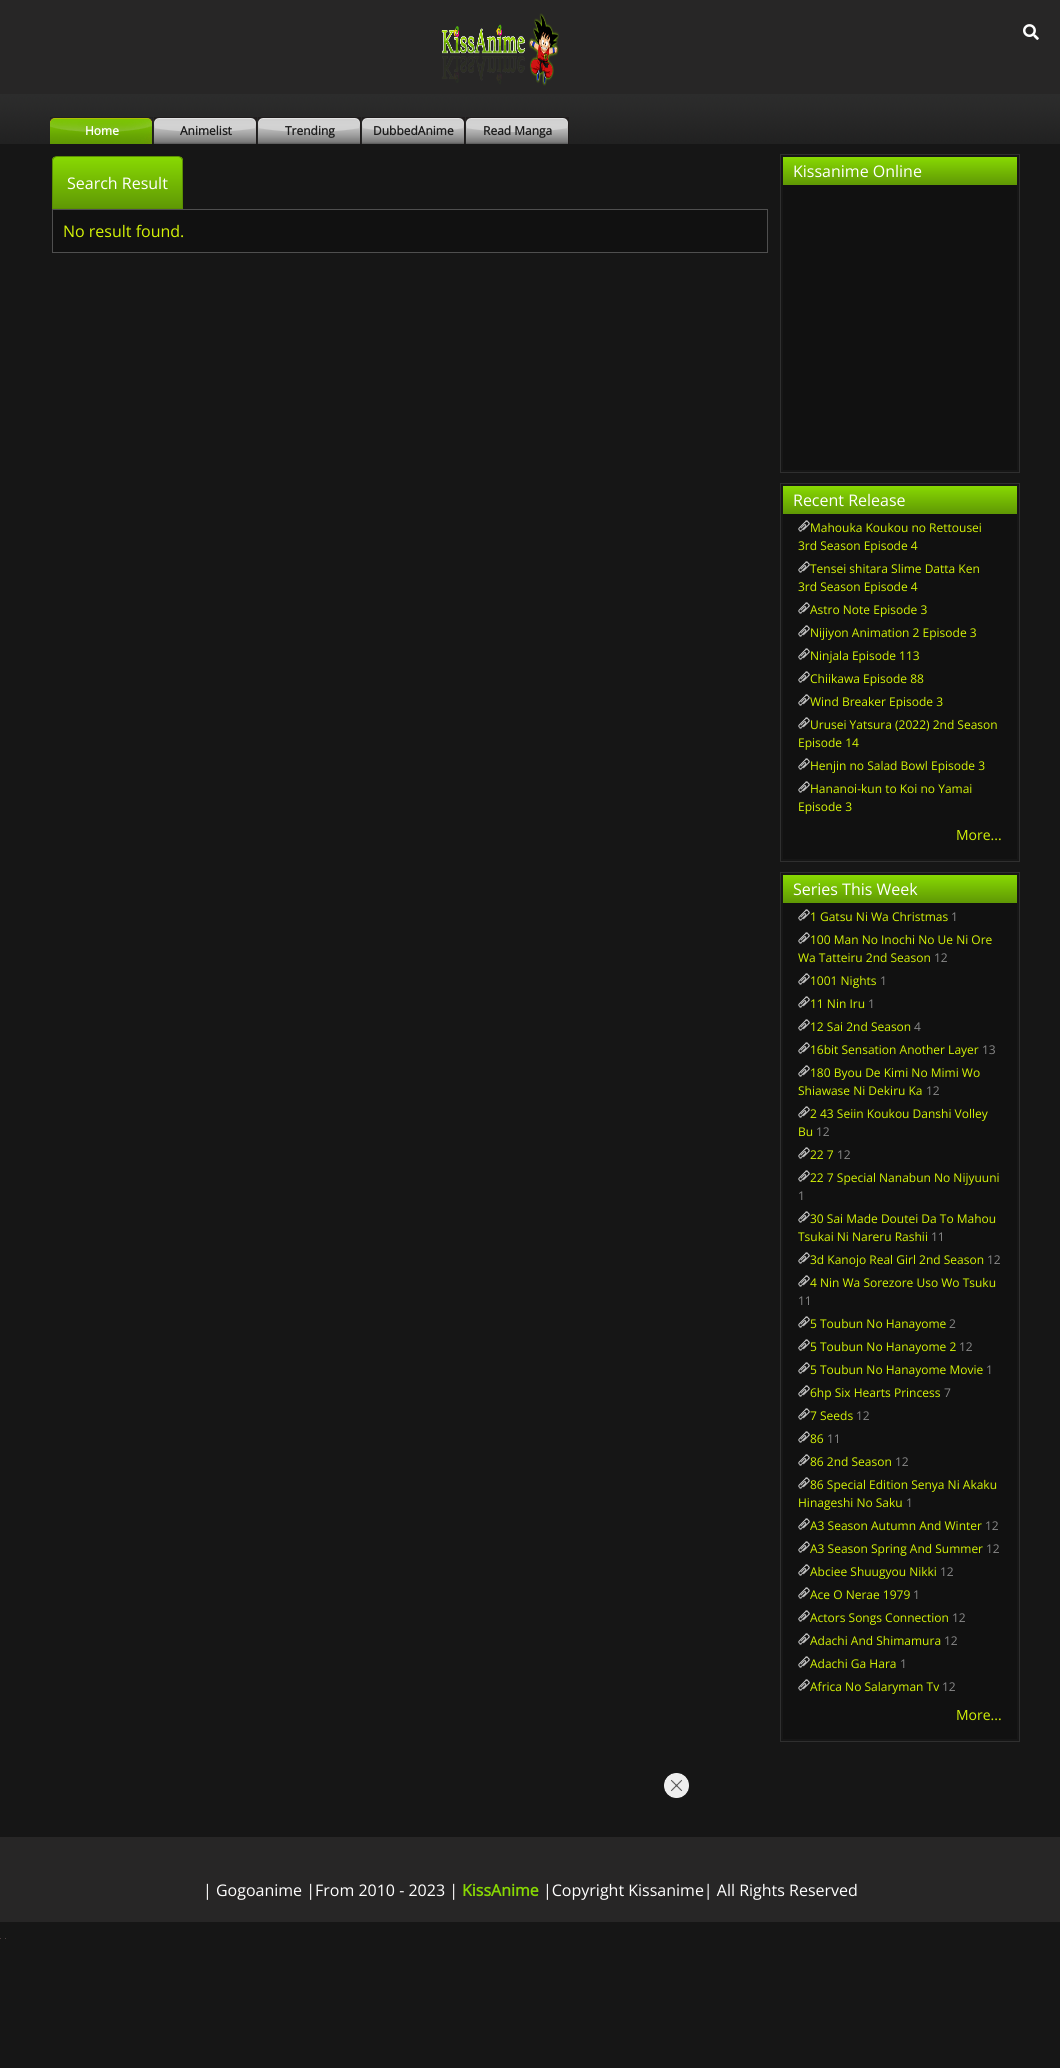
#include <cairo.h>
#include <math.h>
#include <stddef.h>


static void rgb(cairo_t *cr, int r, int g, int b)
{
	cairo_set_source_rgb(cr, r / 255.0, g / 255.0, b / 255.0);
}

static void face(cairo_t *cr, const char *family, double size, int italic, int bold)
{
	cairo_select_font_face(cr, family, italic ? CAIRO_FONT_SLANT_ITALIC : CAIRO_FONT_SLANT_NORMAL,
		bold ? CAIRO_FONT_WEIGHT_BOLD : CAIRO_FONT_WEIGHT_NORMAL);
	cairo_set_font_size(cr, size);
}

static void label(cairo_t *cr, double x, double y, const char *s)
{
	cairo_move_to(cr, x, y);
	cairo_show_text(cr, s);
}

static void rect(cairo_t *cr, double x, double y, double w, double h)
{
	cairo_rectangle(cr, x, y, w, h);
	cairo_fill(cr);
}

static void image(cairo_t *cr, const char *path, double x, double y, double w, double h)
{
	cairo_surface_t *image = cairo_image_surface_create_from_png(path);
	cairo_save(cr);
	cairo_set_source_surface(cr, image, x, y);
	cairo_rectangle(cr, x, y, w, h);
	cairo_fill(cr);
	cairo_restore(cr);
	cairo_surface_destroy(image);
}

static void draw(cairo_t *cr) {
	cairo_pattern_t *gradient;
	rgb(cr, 22, 22, 22);
	cairo_paint(cr);
	rgb(cr, 39, 38, 38);
	rect(cr, 0, 0, 1060, 94);
	image(cr, "image0.png", 441, 13, 118, 73);
	image(cr, "image1.png", 1023, 24, 16, 16);
	image(cr, "image2.png", 0, 94, 1060, 50);
	image(cr, "image3.png", 50, 117, 103, 27);
	face(cr, "Open Sans", 12, 0, 1);
	rgb(cr, 255, 255, 255);
	label(cr, 85, 135, "Home");
	image(cr, "image4.png", 154, 117, 103, 27);
	rgb(cr, 28, 28, 28);
	label(cr, 180, 135, "Animelist");
	image(cr, "image4.png", 258, 117, 103, 27);
	label(cr, 285, 135, "Trending");
	image(cr, "image4.png", 362, 117, 103, 27);
	label(cr, 373, 135, "DubbedAnime");
	image(cr, "image4.png", 466, 117, 103, 27);
	label(cr, 483, 135, "Read Manga");
	cairo_save(cr);
	cairo_new_path(cr);
	cairo_move_to(cr, 57, 156);
	cairo_line_to(cr, 178, 156);
	cairo_curve_to(cr, 181, 156, 183, 158, 183, 161);
	cairo_line_to(cr, 183, 209);
	cairo_line_to(cr, 52, 209);
	cairo_line_to(cr, 52, 161);
	cairo_curve_to(cr, 52, 158, 54, 156, 57, 156);
	cairo_close_path(cr);
	cairo_clip(cr);
	gradient = cairo_pattern_create_linear(118, 157, 118, 208);
	cairo_pattern_add_color_stop_rgba(gradient, 0, 0.533, 0.851, 0.008, 1);
	cairo_pattern_add_color_stop_rgba(gradient, 1, 0.373, 0.596, 0.016, 1);
	cairo_set_source(cr, gradient);
	cairo_pattern_destroy(gradient);
	rect(cr, 52, 157, 131, 51);
	cairo_restore(cr);
	cairo_new_path(cr);
	cairo_move_to(cr, 57, 156.5);
	cairo_line_to(cr, 178, 156.5);
	cairo_curve_to(cr, 180.5, 156.5, 182.5, 158.5, 182.5, 161);
	cairo_line_to(cr, 182.5, 208.5);
	cairo_line_to(cr, 52.5, 208.5);
	cairo_line_to(cr, 52.5, 161);
	cairo_curve_to(cr, 52.5, 158.5, 54.5, 156.5, 57, 156.5);
	cairo_close_path(cr);
	rgb(cr, 90, 143, 3);
	cairo_set_line_width(cr, 1);
	cairo_stroke(cr);
	face(cr, "Open Sans", 16, 0, 0);
	rgb(cr, 255, 255, 255);
	label(cr, 67, 189, "Search Result");
	rgb(cr, 17, 17, 17);
	cairo_rectangle(cr, 52.5, 209.5, 715, 43);
	cairo_fill_preserve(cr);
	rgb(cr, 79, 79, 79);
	cairo_stroke(cr);
	rgb(cr, 213, 244, 6);
	label(cr, 63, 237, "No result found.");
	cairo_rectangle(cr, 780.5, 154.5, 239, 318);
	rgb(cr, 47, 47, 47);
	cairo_stroke(cr);
	gradient = cairo_pattern_create_linear(900, 157, 900, 185);
	cairo_pattern_add_color_stop_rgba(gradient, 0, 0.533, 0.851, 0.008, 1);
	cairo_pattern_add_color_stop_rgba(gradient, 1, 0.373, 0.596, 0.016, 1);
	cairo_set_source(cr, gradient);
	cairo_pattern_destroy(gradient);
	rect(cr, 783, 157, 234, 28);
	rgb(cr, 255, 255, 255);
	label(cr, 793, 177, "Kissanime Online");
	rgb(cr, 17, 17, 17);
	rect(cr, 783, 185, 234, 285);
	cairo_rectangle(cr, 780.5, 483.5, 239, 378);
	rgb(cr, 47, 47, 47);
	cairo_stroke(cr);
	gradient = cairo_pattern_create_linear(900, 486, 900, 514);
	cairo_pattern_add_color_stop_rgba(gradient, 0, 0.533, 0.851, 0.008, 1);
	cairo_pattern_add_color_stop_rgba(gradient, 1, 0.373, 0.596, 0.016, 1);
	cairo_set_source(cr, gradient);
	cairo_pattern_destroy(gradient);
	rect(cr, 783, 486, 234, 28);
	rgb(cr, 255, 255, 255);
	label(cr, 793, 506, "Recent Release");
	rgb(cr, 17, 17, 17);
	rect(cr, 783, 514, 234, 345);
	image(cr, "image5.png", 798, 520, 12, 12);
	face(cr, "Open Sans", 12, 0, 0);
	rgb(cr, 213, 244, 6);
	label(cr, 810, 532, "Mahouka Koukou no Rettousei");
	label(cr, 798, 550, "3rd Season Episode 4");
	image(cr, "image5.png", 798, 561, 12, 12);
	label(cr, 810, 573, "Tensei shitara Slime Datta Ken");
	label(cr, 798, 591, "3rd Season Episode 4");
	image(cr, "image5.png", 798, 602, 12, 12);
	label(cr, 810, 614, "Astro Note Episode 3");
	image(cr, "image5.png", 798, 625, 12, 12);
	label(cr, 810, 637, "Nijiyon Animation 2 Episode 3");
	image(cr, "image5.png", 798, 648, 12, 12);
	label(cr, 810, 660, "Ninjala Episode 113");
	image(cr, "image5.png", 798, 671, 12, 12);
	label(cr, 810, 683, "Chiikawa Episode 88");
	image(cr, "image5.png", 798, 694, 12, 12);
	label(cr, 810, 706, "Wind Breaker Episode 3");
	image(cr, "image5.png", 798, 717, 12, 12);
	label(cr, 810, 729, "Urusei Yatsura (2022) 2nd Season");
	label(cr, 798, 747, "Episode 14");
	image(cr, "image5.png", 798, 758, 12, 12);
	label(cr, 810, 770, "Henjin no Salad Bowl Episode 3");
	image(cr, "image5.png", 798, 781, 12, 12);
	label(cr, 810, 793, "Hananoi-kun to Koi no Yamai");
	label(cr, 798, 811, "Episode 3");
	face(cr, "Open Sans", 14, 0, 0);
	label(cr, 956, 840, "More...");
	cairo_rectangle(cr, 780.5, 872.5, 239, 869);
	rgb(cr, 47, 47, 47);
	cairo_stroke(cr);
	gradient = cairo_pattern_create_linear(900, 875, 900, 903);
	cairo_pattern_add_color_stop_rgba(gradient, 0, 0.533, 0.851, 0.008, 1);
	cairo_pattern_add_color_stop_rgba(gradient, 1, 0.373, 0.596, 0.016, 1);
	cairo_set_source(cr, gradient);
	cairo_pattern_destroy(gradient);
	rect(cr, 783, 875, 234, 28);
	face(cr, "Open Sans", 16, 0, 0);
	rgb(cr, 255, 255, 255);
	label(cr, 793, 895, "Series This Week");
	rgb(cr, 17, 17, 17);
	rect(cr, 783, 903, 234, 836);
	image(cr, "image5.png", 798, 909, 12, 12);
	face(cr, "Open Sans", 12, 0, 0);
	rgb(cr, 213, 244, 6);
	label(cr, 810, 921, "1 Gatsu Ni Wa Christmas");
	rgb(cr, 136, 136, 136);
	label(cr, 951, 921, "1");
	image(cr, "image5.png", 798, 932, 12, 12);
	rgb(cr, 213, 244, 6);
	label(cr, 810, 944, "100 Man No Inochi No Ue Ni Ore");
	label(cr, 798, 962, "Wa Tatteiru 2nd Season");
	rgb(cr, 136, 136, 136);
	label(cr, 934, 962, "12");
	image(cr, "image5.png", 798, 973, 12, 12);
	rgb(cr, 213, 244, 6);
	label(cr, 810, 985, "1001 Nights");
	rgb(cr, 136, 136, 136);
	label(cr, 880, 985, "1");
	image(cr, "image5.png", 798, 996, 12, 12);
	rgb(cr, 213, 244, 6);
	label(cr, 810, 1008, "11 Nin Iru");
	rgb(cr, 136, 136, 136);
	label(cr, 868, 1008, "1");
	image(cr, "image5.png", 798, 1019, 12, 12);
	rgb(cr, 213, 244, 6);
	label(cr, 810, 1031, "12 Sai 2nd Season");
	rgb(cr, 136, 136, 136);
	label(cr, 914, 1031, "4");
	image(cr, "image5.png", 798, 1042, 12, 12);
	rgb(cr, 213, 244, 6);
	label(cr, 810, 1054, "16bit Sensation Another Layer");
	rgb(cr, 136, 136, 136);
	label(cr, 982, 1054, "13");
	image(cr, "image5.png", 798, 1065, 12, 12);
	rgb(cr, 213, 244, 6);
	label(cr, 810, 1077, "180 Byou De Kimi No Mimi Wo");
	label(cr, 798, 1095, "Shiawase Ni Dekiru Ka");
	rgb(cr, 136, 136, 136);
	label(cr, 926, 1095, "12");
	image(cr, "image5.png", 798, 1106, 12, 12);
	rgb(cr, 213, 244, 6);
	label(cr, 810, 1118, "2 43 Seiin Koukou Danshi Volley");
	label(cr, 798, 1136, "Bu");
	rgb(cr, 136, 136, 136);
	label(cr, 816, 1136, "12");
	image(cr, "image5.png", 798, 1147, 12, 12);
	rgb(cr, 213, 244, 6);
	label(cr, 810, 1159, "22 7");
	rgb(cr, 136, 136, 136);
	label(cr, 837, 1159, "12");
	image(cr, "image5.png", 798, 1170, 12, 12);
	rgb(cr, 213, 244, 6);
	label(cr, 810, 1182, "22 7 Special Nanabun No Nijyuuni");
	rgb(cr, 136, 136, 136);
	label(cr, 798, 1200, "1");
	image(cr, "image5.png", 798, 1211, 12, 12);
	rgb(cr, 213, 244, 6);
	label(cr, 810, 1223, "30 Sai Made Doutei Da To Mahou");
	label(cr, 798, 1241, "Tsukai Ni Nareru Rashii");
	rgb(cr, 136, 136, 136);
	label(cr, 931, 1241, "11");
	image(cr, "image5.png", 798, 1252, 12, 12);
	rgb(cr, 213, 244, 6);
	label(cr, 810, 1264, "3d Kanojo Real Girl 2nd Season");
	rgb(cr, 136, 136, 136);
	label(cr, 987, 1264, "12");
	image(cr, "image5.png", 798, 1275, 12, 12);
	rgb(cr, 213, 244, 6);
	label(cr, 810, 1287, "4 Nin Wa Sorezore Uso Wo Tsuku");
	rgb(cr, 136, 136, 136);
	label(cr, 798, 1305, "11");
	image(cr, "image5.png", 798, 1316, 12, 12);
	rgb(cr, 213, 244, 6);
	label(cr, 810, 1328, "5 Toubun No Hanayome");
	rgb(cr, 136, 136, 136);
	label(cr, 949, 1328, "2");
	image(cr, "image5.png", 798, 1339, 12, 12);
	rgb(cr, 213, 244, 6);
	label(cr, 810, 1351, "5 Toubun No Hanayome 2");
	rgb(cr, 136, 136, 136);
	label(cr, 959, 1351, "12");
	image(cr, "image5.png", 798, 1362, 12, 12);
	rgb(cr, 213, 244, 6);
	label(cr, 810, 1374, "5 Toubun No Hanayome Movie");
	rgb(cr, 136, 136, 136);
	label(cr, 986, 1374, "1");
	image(cr, "image5.png", 798, 1385, 12, 12);
	rgb(cr, 213, 244, 6);
	label(cr, 810, 1397, "6hp Six Hearts Princess");
	rgb(cr, 136, 136, 136);
	label(cr, 944, 1397, "7");
	image(cr, "image5.png", 798, 1408, 12, 12);
	rgb(cr, 213, 244, 6);
	label(cr, 810, 1420, "7 Seeds");
	rgb(cr, 136, 136, 136);
	label(cr, 856, 1420, "12");
	image(cr, "image5.png", 798, 1431, 12, 12);
	rgb(cr, 213, 244, 6);
	label(cr, 810, 1443, "86");
	rgb(cr, 136, 136, 136);
	label(cr, 827, 1443, "11");
	image(cr, "image5.png", 798, 1454, 12, 12);
	rgb(cr, 213, 244, 6);
	label(cr, 810, 1466, "86 2nd Season");
	rgb(cr, 136, 136, 136);
	label(cr, 895, 1466, "12");
	image(cr, "image5.png", 798, 1477, 12, 12);
	rgb(cr, 213, 244, 6);
	label(cr, 810, 1489, "86 Special Edition Senya Ni Akaku");
	label(cr, 798, 1507, "Hinageshi No Saku");
	rgb(cr, 136, 136, 136);
	label(cr, 906, 1507, "1");
	image(cr, "image5.png", 798, 1518, 12, 12);
	rgb(cr, 213, 244, 6);
	label(cr, 810, 1530, "A3 Season Autumn And Winter");
	rgb(cr, 136, 136, 136);
	label(cr, 985, 1530, "12");
	image(cr, "image5.png", 798, 1541, 12, 12);
	rgb(cr, 213, 244, 6);
	label(cr, 810, 1553, "A3 Season Spring And Summer");
	rgb(cr, 136, 136, 136);
	label(cr, 986, 1553, "12");
	image(cr, "image5.png", 798, 1564, 12, 12);
	rgb(cr, 213, 244, 6);
	label(cr, 810, 1576, "Abciee Shuugyou Nikki");
	rgb(cr, 136, 136, 136);
	label(cr, 940, 1576, "12");
	image(cr, "image5.png", 798, 1587, 12, 12);
	rgb(cr, 213, 244, 6);
	label(cr, 810, 1599, "Ace O Nerae 1979");
	rgb(cr, 136, 136, 136);
	label(cr, 913, 1599, "1");
	image(cr, "image5.png", 798, 1610, 12, 12);
	rgb(cr, 213, 244, 6);
	label(cr, 810, 1622, "Actors Songs Connection");
	rgb(cr, 136, 136, 136);
	label(cr, 952, 1622, "12");
	image(cr, "image5.png", 798, 1633, 12, 12);
	rgb(cr, 213, 244, 6);
	label(cr, 810, 1645, "Adachi And Shimamura");
	rgb(cr, 136, 136, 136);
	label(cr, 944, 1645, "12");
	image(cr, "image5.png", 798, 1656, 12, 12);
	rgb(cr, 213, 244, 6);
	label(cr, 810, 1668, "Adachi Ga Hara");
	rgb(cr, 136, 136, 136);
	label(cr, 900, 1668, "1");
	image(cr, "image5.png", 798, 1679, 12, 12);
	rgb(cr, 213, 244, 6);
	label(cr, 810, 1691, "Africa No Salaryman Tv");
	rgb(cr, 136, 136, 136);
	label(cr, 942, 1691, "12");
	face(cr, "Open Sans", 14, 0, 0);
	rgb(cr, 213, 244, 6);
	label(cr, 956, 1720, "More...");
	image(cr, "image6.png", 664, 1773, 25, 25);
	rgb(cr, 39, 38, 38);
	rect(cr, 0, 1837, 1060, 85);
	face(cr, "Open Sans", 16, 0, 0);
	rgb(cr, 255, 255, 255);
	label(cr, 203, 1896, "| Gogoanime |From 2010 - 2023 |");
	face(cr, "Open Sans", 16, 0, 1);
	rgb(cr, 136, 217, 2);
	label(cr, 462, 1896, "KissAnime");
	face(cr, "Open Sans", 16, 0, 0);
	rgb(cr, 255, 255, 255);
	label(cr, 543, 1896, "|Copyright Kissanime| All Rights Reserved");
	rgb(cr, 76, 61, 62);
	rect(cr, 0, 1938, 1, 1);
	rgb(cr, 80, 65, 66);
	rect(cr, 5, 1938, 1, 1);
}

int main(void) {
	cairo_surface_t *surface = cairo_image_surface_create(CAIRO_FORMAT_RGB24, 1060, 2068);
	cairo_t *cr = cairo_create(surface);
	cairo_font_options_t *options = cairo_font_options_create();
	cairo_font_options_set_hint_metrics(options, CAIRO_HINT_METRICS_OFF);
	cairo_font_options_set_hint_style(options, CAIRO_HINT_STYLE_NONE);
	cairo_set_font_options(cr, options);
	cairo_set_miter_limit(cr, 4);
	draw(cr);
	cairo_surface_write_to_png(surface, "render.png");
	cairo_font_options_destroy(options);
	cairo_destroy(cr);
	cairo_surface_destroy(surface);
	return 0;
}
